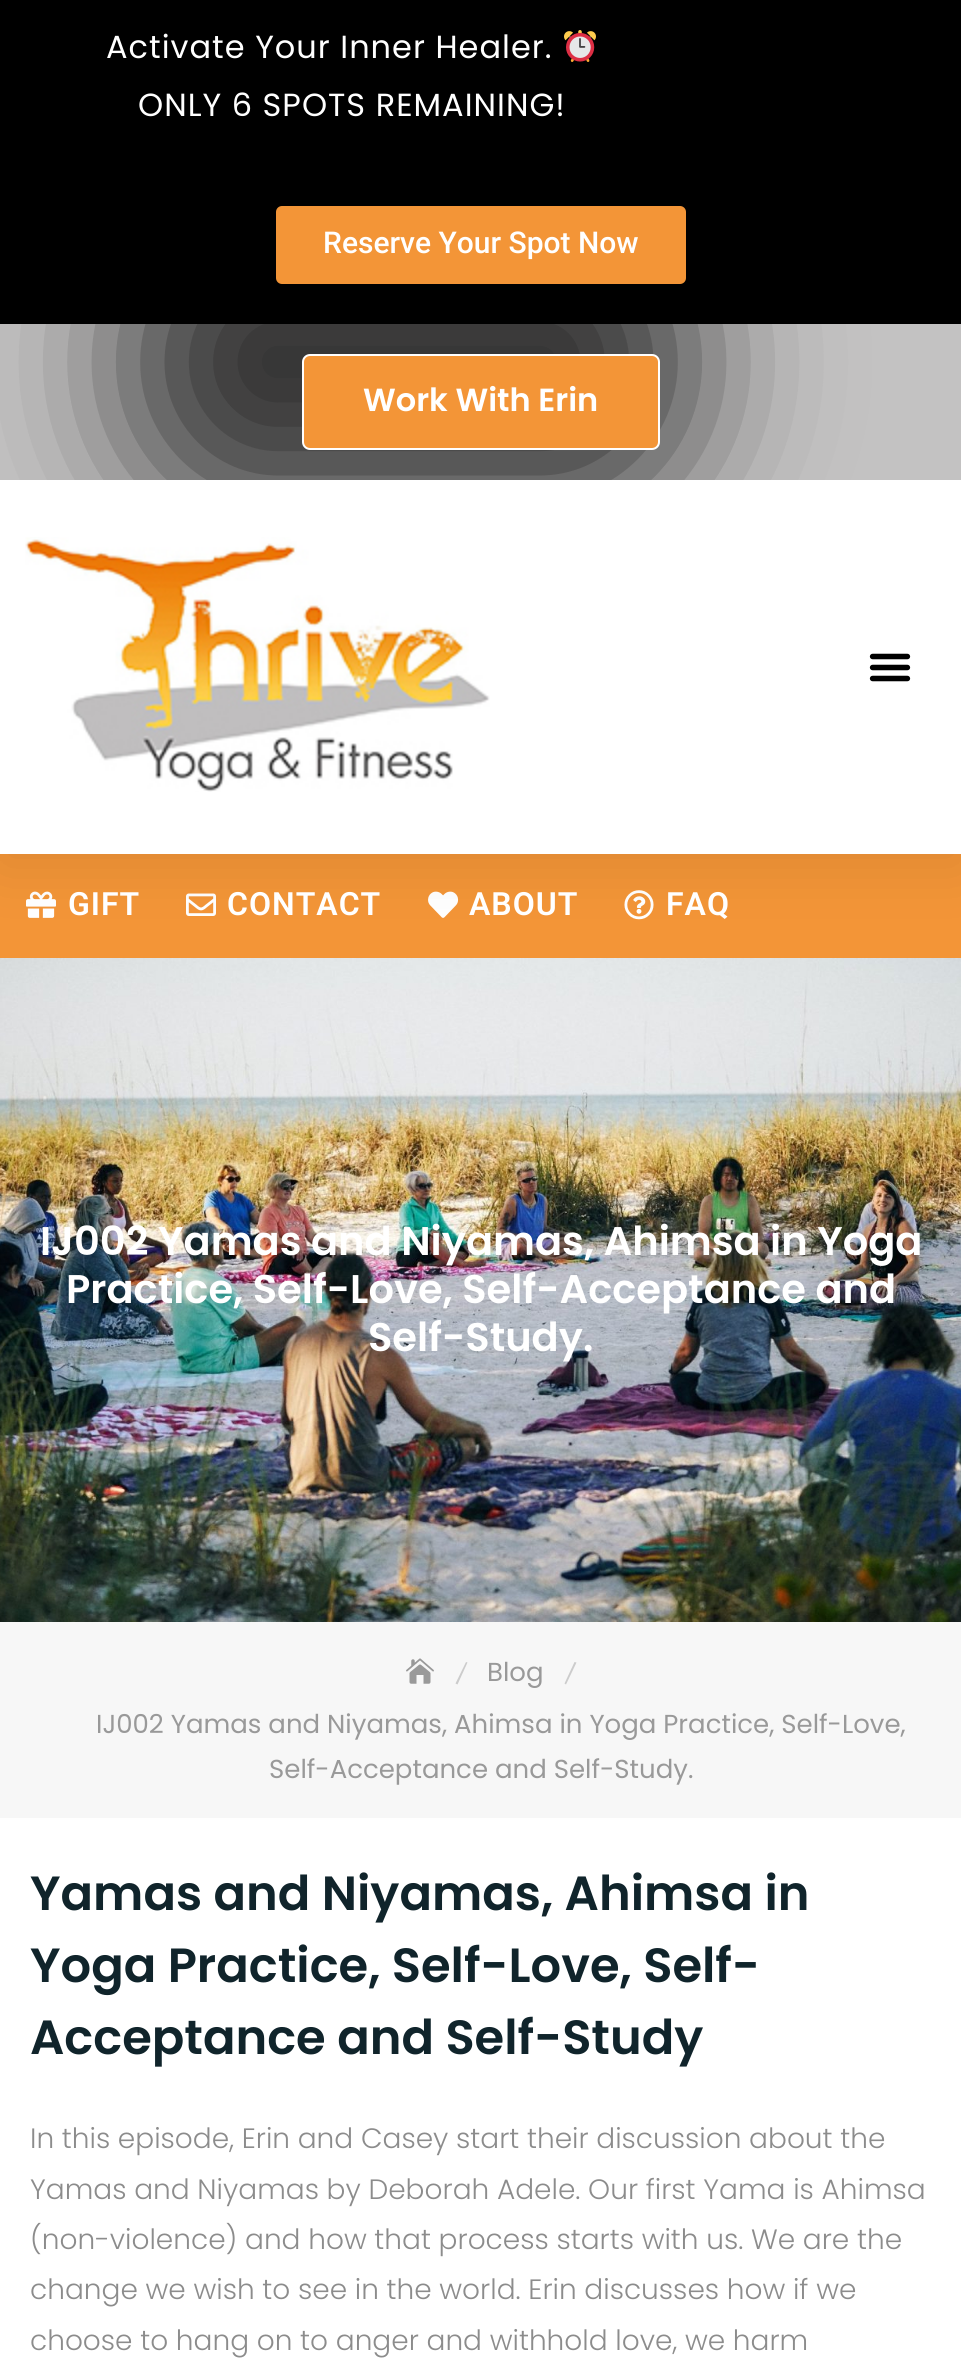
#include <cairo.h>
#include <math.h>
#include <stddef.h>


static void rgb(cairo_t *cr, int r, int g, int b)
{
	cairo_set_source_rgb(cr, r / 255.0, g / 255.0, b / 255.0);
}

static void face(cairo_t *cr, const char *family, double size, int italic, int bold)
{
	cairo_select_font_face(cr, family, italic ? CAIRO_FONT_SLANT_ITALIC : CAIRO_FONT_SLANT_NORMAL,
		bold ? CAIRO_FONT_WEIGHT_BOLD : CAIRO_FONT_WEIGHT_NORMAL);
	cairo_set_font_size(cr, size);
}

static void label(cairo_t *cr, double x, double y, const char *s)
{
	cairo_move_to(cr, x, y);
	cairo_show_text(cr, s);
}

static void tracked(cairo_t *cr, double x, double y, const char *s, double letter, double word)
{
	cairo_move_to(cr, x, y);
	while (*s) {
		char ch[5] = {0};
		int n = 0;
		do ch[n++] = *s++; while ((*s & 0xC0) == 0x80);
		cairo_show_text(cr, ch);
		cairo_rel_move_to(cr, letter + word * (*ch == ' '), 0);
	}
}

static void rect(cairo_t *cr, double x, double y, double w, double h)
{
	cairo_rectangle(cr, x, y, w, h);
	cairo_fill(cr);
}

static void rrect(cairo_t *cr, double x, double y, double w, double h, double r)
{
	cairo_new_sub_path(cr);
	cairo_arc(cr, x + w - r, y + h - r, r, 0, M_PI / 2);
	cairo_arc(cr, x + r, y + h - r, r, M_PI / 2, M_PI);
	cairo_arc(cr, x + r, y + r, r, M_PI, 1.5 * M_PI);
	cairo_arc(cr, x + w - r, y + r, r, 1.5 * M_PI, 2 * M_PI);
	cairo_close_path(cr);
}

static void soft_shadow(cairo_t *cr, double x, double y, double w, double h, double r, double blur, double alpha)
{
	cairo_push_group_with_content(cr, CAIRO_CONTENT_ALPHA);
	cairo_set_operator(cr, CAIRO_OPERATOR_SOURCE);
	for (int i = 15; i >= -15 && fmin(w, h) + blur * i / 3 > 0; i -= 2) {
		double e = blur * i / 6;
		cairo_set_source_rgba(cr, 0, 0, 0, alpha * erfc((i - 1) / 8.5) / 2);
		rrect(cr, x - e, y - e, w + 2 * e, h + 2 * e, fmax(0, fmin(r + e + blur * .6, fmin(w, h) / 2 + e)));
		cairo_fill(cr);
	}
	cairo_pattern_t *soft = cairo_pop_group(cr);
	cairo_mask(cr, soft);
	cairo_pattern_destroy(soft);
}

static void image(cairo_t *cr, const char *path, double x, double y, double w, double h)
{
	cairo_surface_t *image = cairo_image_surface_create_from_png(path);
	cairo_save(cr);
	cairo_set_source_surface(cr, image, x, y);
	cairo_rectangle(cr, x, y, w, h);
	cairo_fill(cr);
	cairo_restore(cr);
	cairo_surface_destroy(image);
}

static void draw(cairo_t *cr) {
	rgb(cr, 255, 255, 255);
	cairo_paint(cr);
	rgb(cr, 243, 149, 55);
	rect(cr, 0, 854, 961, 104);
	image(cr, "image3.png", 26, 891, 30, 27);
	image(cr, "image4.png", 186, 893, 30, 23);
	image(cr, "image5.png", 428, 891, 31, 27);
	image(cr, "image6.png", 624, 890, 30, 30);
	rgb(cr, 0, 0, 0);
	soft_shadow(cr, 0, 334, 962, 530, 0, 30, 0.1);
	rgb(cr, 195, 194, 194);
	rect(cr, 0, 324, 961, 156);
	rgb(cr, 12, 12, 12);
	soft_shadow(cr, 128, 212, 562, 300, 110, 73, 0.78);
	rgb(cr, 0, 0, 0);
	rect(cr, 0, 0, 961, 324);
	face(cr, "Poppins", 32, 0, 0);
	rgb(cr, 255, 255, 255);
	tracked(cr, 106, 58, "Activate Your Inner Healer.", 1, 0);
	image(cr, "image0.png", 564, 30, 32, 32);
	tracked(cr, 138, 116, "ONLY 6 SPOTS REMAINING!", 1, 0);
	rgb(cr, 243, 149, 55);
	rrect(cr, 276, 206, 410, 78, 6);
	cairo_fill(cr);
	face(cr, "Roboto Medium", 30, 0, 0);
	rgb(cr, 255, 255, 255);
	label(cr, 323, 253, "Reserve Your Spot Now");
	rgb(cr, 243, 149, 55);
	rrect(cr, 303, 355, 356, 94, 7);
	cairo_fill_preserve(cr);
	rgb(cr, 255, 255, 255);
	cairo_stroke(cr);
	face(cr, "Poppins SemiBold", 32, 0, 0);
	label(cr, 363, 411, "Work With Erin");
	rect(cr, 0, 480, 961, 374);
	image(cr, "image1.png", 25, 537, 465, 255);
	image(cr, "image2.png", 869, 653, 42, 29);
	face(cr, "Roboto SemiBold", 32, 0, 0);
	tracked(cr, 68, 915, "GIFT", 1, 0);
	tracked(cr, 227, 915, "CONTACT", 1, 0);
	tracked(cr, 469, 915, "ABOUT", 1, 0);
	tracked(cr, 666, 915, "FAQ", 1, 0);
	image(cr, "image7.png", 0, 958, 961, 664);
	face(cr, "Poppins SemiBold", 40, 0, 0);
	label(cr, 40, 1255, "IJ002 Yamas and Niyamas, Ahimsa in Yoga");
	label(cr, 66, 1303, "Practice, Self-Love, Self-Acceptance and");
	label(cr, 368, 1351, "Self-Study.");
	rgb(cr, 247, 247, 247);
	rect(cr, 0, 1622, 961, 196);
	image(cr, "image8.png", 406, 1658, 28, 26);
	rgb(cr, 204, 204, 204);
	cairo_new_path(cr);
	cairo_move_to(cr, 466, 1662);
	cairo_line_to(cr, 467.5, 1662.5);
	cairo_line_to(cr, 457.5, 1684.5);
	cairo_line_to(cr, 455.5, 1683.5);
	cairo_close_path(cr);
	cairo_fill(cr);
	face(cr, "Poppins", 26, 0, 0);
	rgb(cr, 153, 153, 153);
	label(cr, 487, 1681, "Blog");
	rgb(cr, 204, 204, 204);
	cairo_new_path(cr);
	cairo_move_to(cr, 574.5, 1662);
	cairo_line_to(cr, 576.5, 1662.5);
	cairo_line_to(cr, 566, 1684.5);
	cairo_line_to(cr, 564.5, 1683.5);
	cairo_close_path(cr);
	cairo_fill(cr);
	rgb(cr, 153, 153, 153);
	label(cr, 96, 1733, "IJ002 Yamas and Niyamas, Ahimsa in Yoga Practice, Self-Love,");
	label(cr, 269, 1778, "Self-Acceptance and Self-Study.");
	face(cr, "Poppins SemiBold", 48, 0, 0);
	rgb(cr, 16, 36, 43);
	label(cr, 30, 1910, "Yamas and Niyamas, Ahimsa in");
	label(cr, 30, 1982, "Yoga Practice, Self-Love, Self-");
	label(cr, 30, 2054, "Acceptance and Self-Study");
	face(cr, "Poppins Light", 28, 0, 0);
	rgb(cr, 140, 140, 140);
	label(cr, 30, 2148, "In this episode, Erin and Casey start their discussion about the");
	label(cr, 30, 2199, "Yamas and Niyamas by Deborah Adele. Our first Yama is Ahimsa");
	label(cr, 30, 2249, "(non-violence) and how that process starts with us. We are the");
	label(cr, 30, 2299, "change we wish to see in the world. Erin discusses how if we");
	label(cr, 30, 2350, "choose to hang on to anger and withhold love, we harm");
}

int main(void) {
	cairo_surface_t *surface = cairo_image_surface_create(CAIRO_FORMAT_RGB24, 961, 2379);
	cairo_t *cr = cairo_create(surface);
	cairo_font_options_t *options = cairo_font_options_create();
	cairo_font_options_set_hint_metrics(options, CAIRO_HINT_METRICS_OFF);
	cairo_font_options_set_hint_style(options, CAIRO_HINT_STYLE_NONE);
	cairo_set_font_options(cr, options);
	cairo_set_miter_limit(cr, 4);
	draw(cr);
	cairo_surface_write_to_png(surface, "render.png");
	cairo_font_options_destroy(options);
	cairo_destroy(cr);
	cairo_surface_destroy(surface);
	return 0;
}
